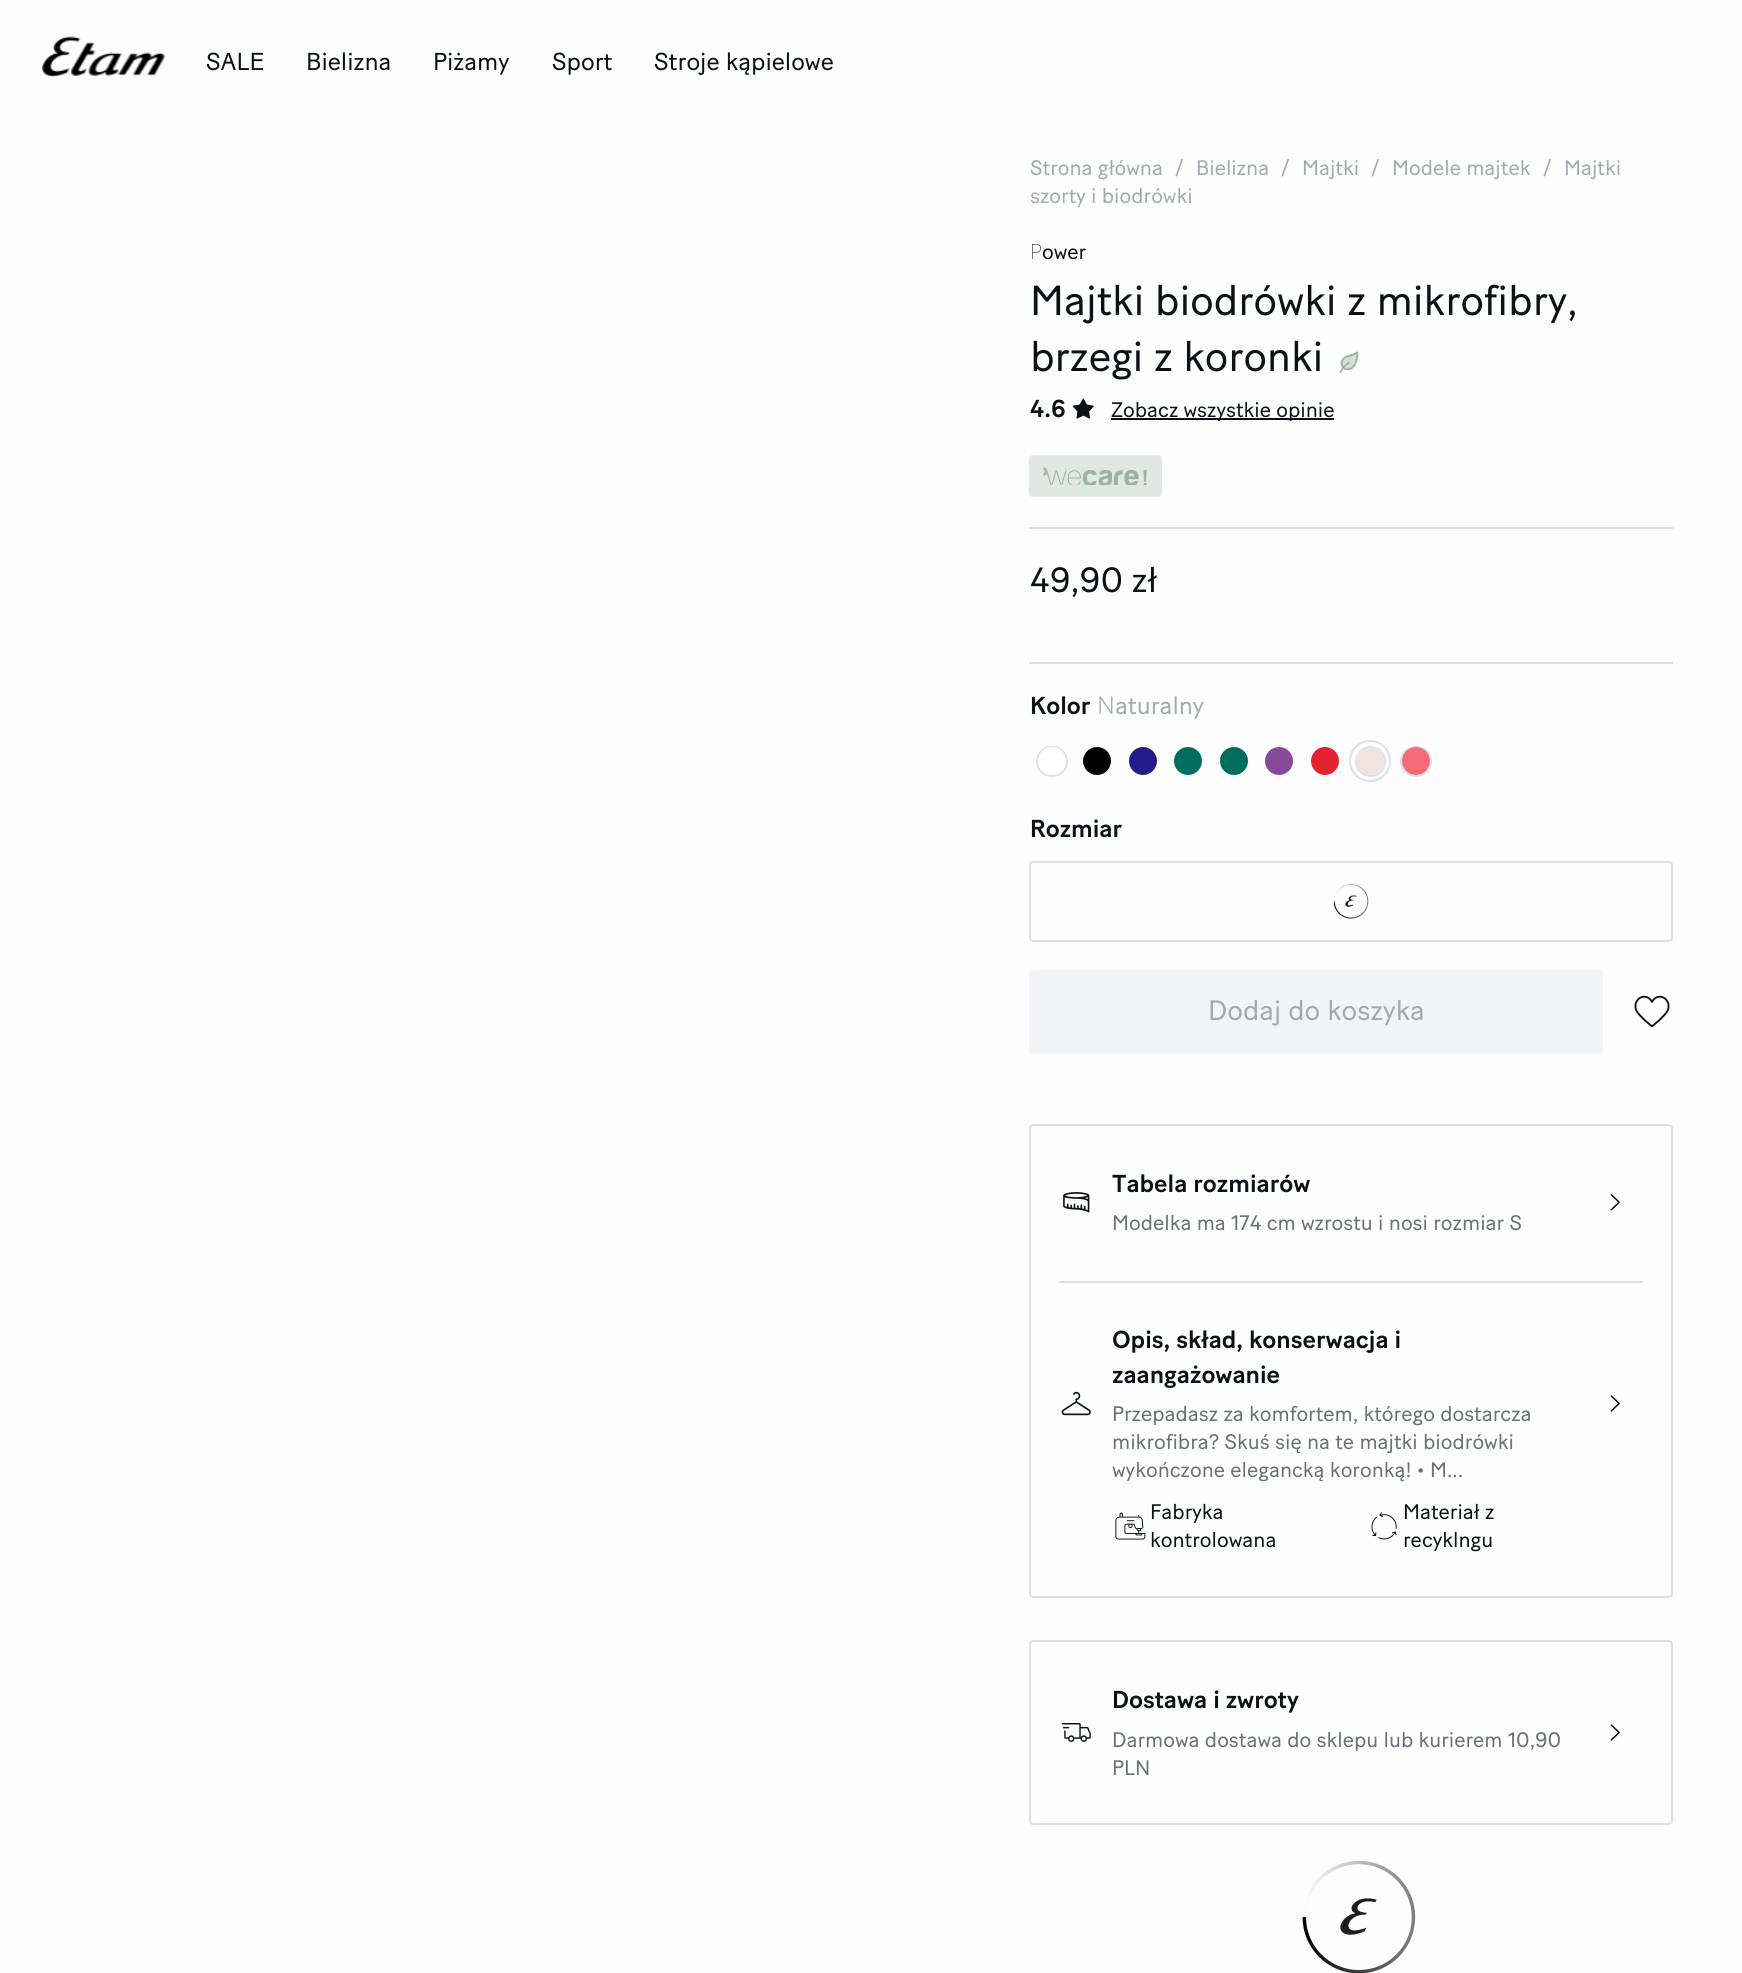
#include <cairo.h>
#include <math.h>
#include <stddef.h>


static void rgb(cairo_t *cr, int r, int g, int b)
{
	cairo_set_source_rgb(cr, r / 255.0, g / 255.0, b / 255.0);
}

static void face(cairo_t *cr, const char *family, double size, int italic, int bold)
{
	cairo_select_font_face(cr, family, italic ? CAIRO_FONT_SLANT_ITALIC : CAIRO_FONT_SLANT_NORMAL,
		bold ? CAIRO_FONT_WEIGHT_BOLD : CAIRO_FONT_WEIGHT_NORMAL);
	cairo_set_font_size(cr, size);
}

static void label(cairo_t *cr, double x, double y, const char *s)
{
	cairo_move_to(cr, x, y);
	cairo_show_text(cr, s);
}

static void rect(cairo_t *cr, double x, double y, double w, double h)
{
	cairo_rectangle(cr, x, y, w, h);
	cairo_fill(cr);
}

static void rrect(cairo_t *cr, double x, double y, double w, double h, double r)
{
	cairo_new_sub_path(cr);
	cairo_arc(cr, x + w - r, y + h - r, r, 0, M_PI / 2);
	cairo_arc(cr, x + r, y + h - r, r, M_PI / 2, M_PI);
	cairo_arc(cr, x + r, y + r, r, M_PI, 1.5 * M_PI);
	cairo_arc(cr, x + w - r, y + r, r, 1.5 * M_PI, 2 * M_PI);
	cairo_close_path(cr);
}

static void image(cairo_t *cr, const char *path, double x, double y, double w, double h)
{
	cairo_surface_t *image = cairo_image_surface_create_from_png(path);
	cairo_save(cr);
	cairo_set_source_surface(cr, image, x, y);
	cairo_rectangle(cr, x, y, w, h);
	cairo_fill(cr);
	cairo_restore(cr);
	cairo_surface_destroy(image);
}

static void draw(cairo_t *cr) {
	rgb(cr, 253, 253, 253);
	cairo_paint(cr);
	image(cr, "image0.png", 42, 36, 123, 41);
	face(cr, "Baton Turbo", 24.5, 0, 0);
	rgb(cr, 11, 18, 21);
	label(cr, 206, 70, "SALE");
	label(cr, 306, 70, "Bielizna");
	label(cr, 433, 70, "Piżamy");
	label(cr, 552, 70, "Sport");
	label(cr, 654, 70, "Stroje kąpielowe");
	face(cr, "Baton Turbo", 21, 0, 0);
	rgb(cr, 162, 169, 176);
	label(cr, 1030, 175, "Strona główna");
	label(cr, 1175, 175, "/");
	label(cr, 1196, 175, "Bielizna");
	label(cr, 1281, 175, "/");
	label(cr, 1302, 175, "Majtki");
	label(cr, 1371, 175, "/");
	label(cr, 1392, 175, "Modele majtek");
	label(cr, 1543, 175, "/");
	label(cr, 1564, 175, "Majtki");
	label(cr, 1030, 203, "szorty i biodrówki");
	face(cr, "Noto Sans Thin", 21, 0, 0);
	rgb(cr, 11, 18, 21);
	label(cr, 1030, 259, "P");
	face(cr, "Baton Turbo", 21, 0, 0);
	label(cr, 1042, 259, "ower");
	face(cr, "Baton Turbo", 42, 0, 0);
	label(cr, 1030, 315, "Majtki biodrówki z mikrofibry,");
	label(cr, 1030, 371, "brzegi z koronki");
	image(cr, "image1.png", 1339, 351, 20, 22);
	face(cr, "Baton Turbo Medium", 24.5, 0, 0);
	label(cr, 1030, 417, "4.6");
	image(cr, "image2.png", 1072, 398, 22, 21);
	rect(cr, 1111, 418, 223, 2);
	face(cr, "Baton Turbo", 21, 0, 0);
	label(cr, 1111, 417, "Zobacz wszystkie opinie");
	rgb(cr, 225, 232, 227);
	rrect(cr, 1029, 455, 133, 42, 4);
	cairo_fill(cr);
	image(cr, "image3.png", 1043, 467, 104, 18);
	rgb(cr, 221, 225, 230);
	rect(cr, 1029, 527, 644, 2);
	face(cr, "Baton Turbo", 35, 0, 0);
	rgb(cr, 11, 18, 21);
	label(cr, 1030, 592, "49,90 zł");
	rgb(cr, 221, 225, 230);
	rect(cr, 1029, 662, 644, 2);
	face(cr, "Baton Turbo Medium", 24.5, 0, 0);
	rgb(cr, 11, 18, 21);
	label(cr, 1030, 714, "Kolor");
	face(cr, "Noto Sans Light", 24.5, 0, 0);
	rgb(cr, 162, 169, 176);
	label(cr, 1097, 714, "N");
	face(cr, "Baton Turbo", 24.5, 0, 0);
	label(cr, 1115, 714, "aturalny");
	rrect(cr, 1037, 747, 30, 29, 14.5);
	rgb(cr, 221, 225, 230);
	cairo_stroke(cr);
	rgb(cr, 255, 255, 255);
	cairo_arc(cr, 1052, 761, 14, 0, 2 * M_PI);
	cairo_fill(cr);
	rgb(cr, 0, 0, 0);
	cairo_arc(cr, 1097, 761, 14, 0, 2 * M_PI);
	cairo_fill(cr);
	rgb(cr, 35, 29, 139);
	cairo_arc(cr, 1143, 761, 14, 0, 2 * M_PI);
	cairo_fill(cr);
	rgb(cr, 1, 110, 93);
	cairo_arc(cr, 1188, 761, 14, 0, 2 * M_PI);
	cairo_fill(cr);
	cairo_arc(cr, 1234, 761, 14, 0, 2 * M_PI);
	cairo_fill(cr);
	rgb(cr, 135, 74, 152);
	cairo_arc(cr, 1279, 761, 14, 0, 2 * M_PI);
	cairo_fill(cr);
	rgb(cr, 227, 35, 49);
	cairo_arc(cr, 1325, 761, 14, 0, 2 * M_PI);
	cairo_fill(cr);
	cairo_arc(cr, 1370.5, 761.5, 14.5, 0, 2 * M_PI);
	rgb(cr, 221, 225, 230);
	cairo_stroke(cr);
	cairo_arc(cr, 1370, 761, 20, 0, 2 * M_PI);
	cairo_stroke(cr);
	rgb(cr, 238, 230, 222);
	cairo_arc(cr, 1370, 761, 14, 0, 2 * M_PI);
	cairo_fill(cr);
	rrect(cr, 1401, 747, 30, 29, 14.5);
	rgb(cr, 221, 225, 230);
	cairo_stroke(cr);
	rgb(cr, 244, 108, 120);
	cairo_arc(cr, 1416, 761, 14, 0, 2 * M_PI);
	cairo_fill(cr);
	face(cr, "Baton Turbo Medium", 24.5, 0, 0);
	rgb(cr, 11, 18, 21);
	label(cr, 1030, 837, "Rozmiar");
	rrect(cr, 1030, 862, 642, 79, 3);
	rgb(cr, 221, 225, 230);
	cairo_stroke(cr);
	image(cr, "image4.png", 1334, 884, 35, 35);
	rgb(cr, 242, 244, 248);
	rrect(cr, 1029, 970, 574, 84, 4);
	cairo_fill(cr);
	face(cr, "Baton Turbo", 28, 0, 0);
	rgb(cr, 162, 169, 176);
	label(cr, 1208, 1020, "Dodaj do koszyka");
	image(cr, "image5.png", 1634, 995, 36, 33);
	rrect(cr, 1030, 1125, 642, 472, 3);
	rgb(cr, 221, 225, 230);
	cairo_stroke(cr);
	image(cr, "image6.png", 1063, 1192, 27, 21);
	face(cr, "Baton Turbo Medium", 24.5, 0, 0);
	rgb(cr, 11, 18, 21);
	label(cr, 1112, 1192, "Tabela rozmiarów");
	face(cr, "Baton Turbo", 21, 0, 0);
	rgb(cr, 105, 112, 119);
	label(cr, 1112, 1230, "Modelka ma 174 cm wzrostu i nosi rozmiar S");
	image(cr, "image7.png", 1610, 1194, 10, 17);
	rgb(cr, 221, 225, 230);
	rect(cr, 1059, 1281, 584, 2);
	image(cr, "image8.png", 1061, 1391, 30, 25);
	face(cr, "Baton Turbo Medium", 24.5, 0, 0);
	rgb(cr, 11, 18, 21);
	label(cr, 1112, 1348, "Opis, skład, konserwacja i");
	label(cr, 1112, 1383, "zaangażowanie");
	face(cr, "Baton Turbo", 21, 0, 0);
	rgb(cr, 105, 112, 119);
	label(cr, 1112, 1421, "Przepadasz za komfortem, którego dostarcza");
	label(cr, 1112, 1449, "mikrofibra? Skuś się na te majtki biodrówki");
	label(cr, 1112, 1477, "wykończone elegancką koronką! • M...");
	image(cr, "image9.png", 1610, 1395, 10, 17);
	image(cr, "image10.png", 1115, 1512, 31, 28);
	rgb(cr, 11, 18, 21);
	label(cr, 1150, 1519, "Fabryka");
	label(cr, 1150, 1547, "kontrolowana");
	image(cr, "image11.png", 1371, 1512, 26, 28);
	label(cr, 1403, 1519, "Materiał z");
	label(cr, 1403, 1547, "recyklngu");
	rrect(cr, 1030, 1641, 642, 183, 3);
	rgb(cr, 221, 225, 230);
	cairo_stroke(cr);
	image(cr, "image12.png", 1061, 1723, 30, 19);
	face(cr, "Baton Turbo Medium", 24.5, 0, 0);
	rgb(cr, 11, 18, 21);
	label(cr, 1112, 1708, "Dostawa i zwroty");
	face(cr, "Baton Turbo", 21, 0, 0);
	rgb(cr, 105, 112, 119);
	label(cr, 1112, 1747, "Darmowa dostawa do sklepu lub kurierem 10,90");
	label(cr, 1112, 1775, "PLN");
	image(cr, "image9.png", 1610, 1724, 10, 17);
	image(cr, "image13.png", 1302, 1860, 114, 113);
}

int main(void) {
	cairo_surface_t *surface = cairo_image_surface_create(CAIRO_FORMAT_RGB24, 1742, 1973);
	cairo_t *cr = cairo_create(surface);
	cairo_font_options_t *options = cairo_font_options_create();
	cairo_font_options_set_hint_metrics(options, CAIRO_HINT_METRICS_OFF);
	cairo_font_options_set_hint_style(options, CAIRO_HINT_STYLE_NONE);
	cairo_set_font_options(cr, options);
	cairo_set_miter_limit(cr, 4);
	draw(cr);
	cairo_surface_write_to_png(surface, "render.png");
	cairo_font_options_destroy(options);
	cairo_destroy(cr);
	cairo_surface_destroy(surface);
	return 0;
}
